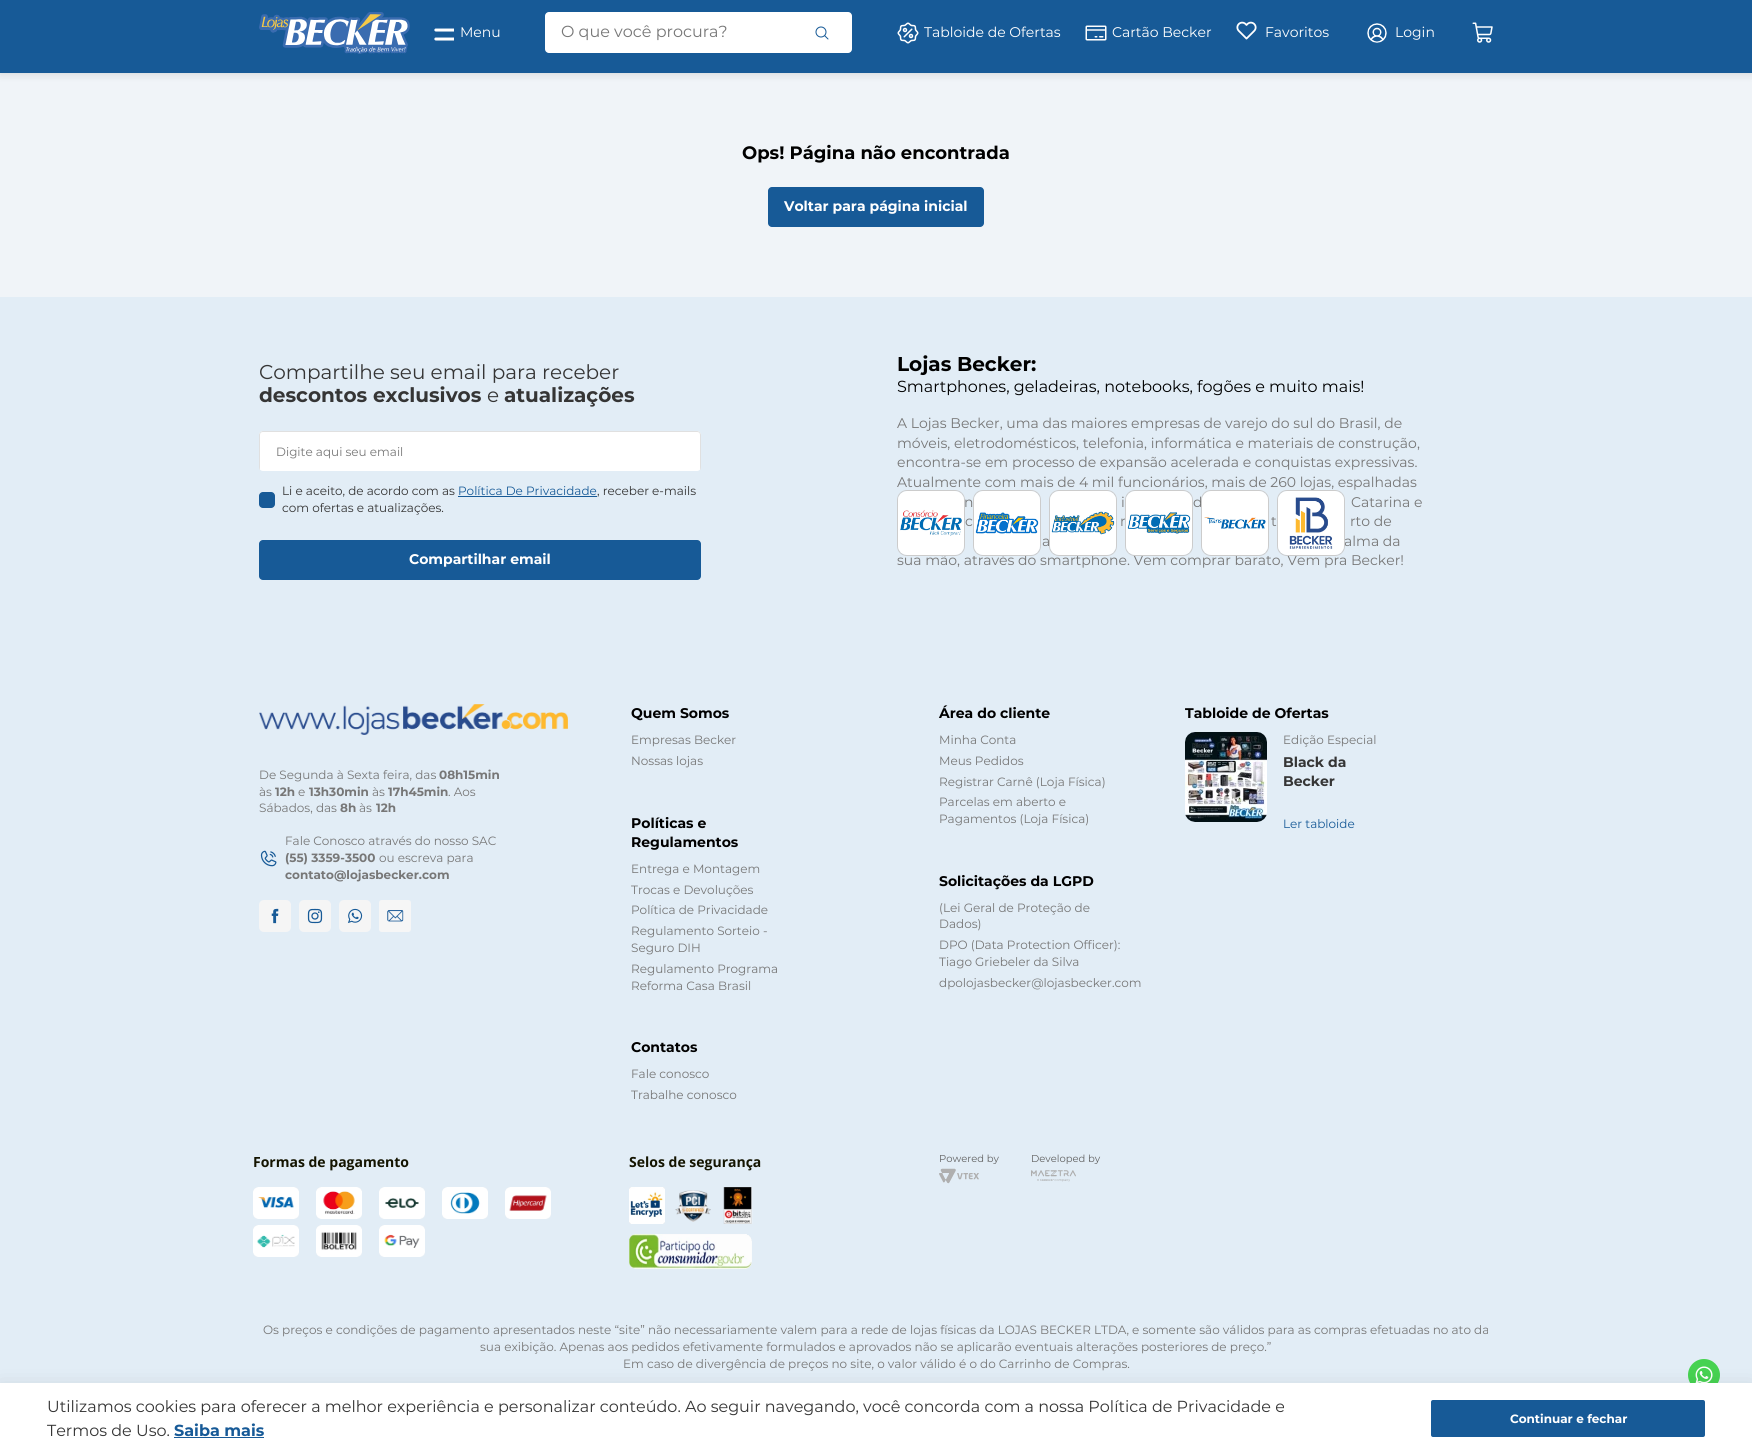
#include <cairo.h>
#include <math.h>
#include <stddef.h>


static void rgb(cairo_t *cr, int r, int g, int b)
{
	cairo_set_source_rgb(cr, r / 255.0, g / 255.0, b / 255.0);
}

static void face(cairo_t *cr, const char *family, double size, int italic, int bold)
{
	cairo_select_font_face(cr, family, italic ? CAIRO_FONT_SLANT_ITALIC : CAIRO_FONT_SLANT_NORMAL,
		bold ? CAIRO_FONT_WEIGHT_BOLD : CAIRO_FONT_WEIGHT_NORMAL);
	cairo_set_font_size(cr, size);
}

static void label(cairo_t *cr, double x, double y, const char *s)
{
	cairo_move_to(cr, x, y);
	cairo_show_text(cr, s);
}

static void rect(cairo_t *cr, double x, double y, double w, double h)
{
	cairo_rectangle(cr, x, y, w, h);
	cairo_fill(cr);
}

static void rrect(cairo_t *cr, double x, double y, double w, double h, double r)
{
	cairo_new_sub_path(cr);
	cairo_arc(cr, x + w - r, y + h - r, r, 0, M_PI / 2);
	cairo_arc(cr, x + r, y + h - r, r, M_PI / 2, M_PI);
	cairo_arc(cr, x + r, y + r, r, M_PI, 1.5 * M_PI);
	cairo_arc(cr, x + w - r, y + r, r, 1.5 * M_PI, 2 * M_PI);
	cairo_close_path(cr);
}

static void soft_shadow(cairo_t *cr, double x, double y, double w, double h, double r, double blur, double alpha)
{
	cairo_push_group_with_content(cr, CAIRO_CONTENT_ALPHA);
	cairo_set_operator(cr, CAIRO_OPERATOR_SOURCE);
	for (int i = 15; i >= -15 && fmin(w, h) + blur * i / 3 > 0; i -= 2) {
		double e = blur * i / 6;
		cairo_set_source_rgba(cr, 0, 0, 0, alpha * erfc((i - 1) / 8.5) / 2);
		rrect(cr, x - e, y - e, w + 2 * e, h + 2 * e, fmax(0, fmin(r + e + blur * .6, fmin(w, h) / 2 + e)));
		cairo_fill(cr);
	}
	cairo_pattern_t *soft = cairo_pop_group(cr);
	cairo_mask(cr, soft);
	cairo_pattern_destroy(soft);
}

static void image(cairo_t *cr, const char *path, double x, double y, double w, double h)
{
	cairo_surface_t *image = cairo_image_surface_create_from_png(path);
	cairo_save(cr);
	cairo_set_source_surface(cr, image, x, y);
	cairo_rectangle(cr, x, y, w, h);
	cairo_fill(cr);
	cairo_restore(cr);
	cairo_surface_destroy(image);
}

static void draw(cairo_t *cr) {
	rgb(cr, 240, 244, 248);
	cairo_paint(cr);
	rgb(cr, 0, 0, 0);
	soft_shadow(cr, 0, -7, 1752, 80, 0, 5, 0.15);
	rgb(cr, 23, 90, 151);
	rect(cr, 0, 0, 1752, 73);
	image(cr, "image0.png", 259, 12, 151, 42);
	image(cr, "image1.png", 434, 28, 20, 13);
	face(cr, "Montserrat", 14, 0, 0);
	rgb(cr, 255, 255, 255);
	label(cr, 460, 37, "Menu");
	rrect(cr, 545, 12, 307, 41, 4);
	cairo_fill(cr);
	face(cr, "Montserrat", 16, 0, 0);
	rgb(cr, 119, 119, 119);
	label(cr, 561, 37, "O que você procura?");
	image(cr, "image2.png", 815, 26, 14, 14);
	image(cr, "image3.png", 897, 22, 22, 22);
	face(cr, "Montserrat", 14, 0, 0);
	rgb(cr, 255, 255, 255);
	label(cr, 924, 37, "Tabloide de Ofertas");
	image(cr, "image4.png", 1085, 25, 22, 16);
	label(cr, 1112, 37, "Cartão Becker");
	image(cr, "image5.png", 1236, 21, 21, 19);
	label(cr, 1265, 37, "Favoritos");
	image(cr, "image6.png", 1367, 23, 20, 20);
	label(cr, 1395, 37, "Login");
	image(cr, "image7.png", 1472, 22, 21, 21);
	face(cr, "Montserrat", 18, 0, 1);
	rgb(cr, 0, 0, 0);
	label(cr, 742, 159, "Ops! Página não encontrada");
	rgb(cr, 23, 90, 151);
	rrect(cr, 768, 187, 216, 40, 4);
	cairo_fill(cr);
	face(cr, "Montserrat", 14, 0, 1);
	rgb(cr, 255, 255, 255);
	label(cr, 784, 211, "Voltar para página inicial");
	rgb(cr, 226, 237, 246);
	rect(cr, 0, 297, 1752, 1086);
	face(cr, "Montserrat", 20, 0, 0);
	rgb(cr, 53, 53, 53);
	label(cr, 259, 379, "Compartilhe seu email para receber");
	face(cr, "Montserrat", 20, 0, 1);
	label(cr, 259, 402, "descontos exclusivos");
	face(cr, "Montserrat", 20, 0, 0);
	label(cr, 487, 402, "e");
	face(cr, "Montserrat", 20, 0, 1);
	label(cr, 504, 402, "atualizações");
	cairo_save(cr);
	rrect(cr, 259, 431, 442, 40, 4);
	cairo_clip(cr);
	rgb(cr, 255, 255, 255);
	rrect(cr, 259, 431, 442, 42, 4);
	cairo_fill(cr);
	cairo_restore(cr);
	rgb(cr, 224, 224, 224);
	cairo_new_path(cr);
	cairo_move_to(cr, 263, 431);
	cairo_curve_to(cr, 261, 431, 259, 433, 259, 435);
	cairo_line_to(cr, 259, 467);
	cairo_curve_to(cr, 259, 468, 259, 469, 260, 470);
	cairo_line_to(cr, 260, 435);
	cairo_curve_to(cr, 260, 433, 261, 432, 263, 432);
	cairo_line_to(cr, 697, 432);
	cairo_curve_to(cr, 699, 432, 700, 433, 700, 435);
	cairo_line_to(cr, 700, 470);
	cairo_curve_to(cr, 701, 469, 701, 468, 701, 467);
	cairo_line_to(cr, 701, 435);
	cairo_curve_to(cr, 701, 433, 699, 431, 697, 431);
	cairo_close_path(cr);
	cairo_fill(cr);
	face(cr, "Montserrat", 12, 0, 0);
	rgb(cr, 119, 119, 119);
	label(cr, 276, 456, "Digite aqui seu email");
	rrect(cr, 259.5, 492.5, 15, 15, 3.5);
	rgb(cr, 224, 224, 224);
	cairo_set_line_width(cr, 1);
	cairo_stroke(cr);
	rgb(cr, 23, 90, 151);
	rrect(cr, 259, 492, 16, 16, 4);
	cairo_fill(cr);
	rgb(cr, 53, 53, 53);
	label(cr, 282, 495, "Li e aceito, de acordo com as");
	rgb(cr, 23, 90, 151);
	label(cr, 458, 495, "Política De Privacidade");
	rect(cr, 458, 496, 139, 1);
	rgb(cr, 53, 53, 53);
	label(cr, 597, 495, ", receber e-mails");
	label(cr, 282, 512, "com ofertas e atualizações.");
	rgb(cr, 23, 90, 151);
	rrect(cr, 259, 540, 442, 40, 4);
	cairo_fill(cr);
	face(cr, "Montserrat", 14, 0, 1);
	rgb(cr, 255, 255, 255);
	label(cr, 409, 564, "Compartilhar email");
	face(cr, "Montserrat", 20, 0, 1);
	rgb(cr, 0, 0, 0);
	label(cr, 897, 371, "Lojas Becker:");
	face(cr, "Montserrat", 16, 0, 0);
	label(cr, 897, 392, "Smartphones, geladeiras, notebooks, fogões e muito mais!");
	face(cr, "Montserrat", 14, 0, 0);
	rgb(cr, 119, 119, 119);
	label(cr, 897, 428, "A Lojas Becker, uma das maiores empresas de varejo do sul do Brasil, de");
	label(cr, 897, 448, "móveis, eletrodomésticos, telefonia, informática e materiais de construção,");
	label(cr, 897, 467, "encontra-se em processo de expansão acelerada e conquistas expressivas.");
	label(cr, 897, 487, "Atualmente com mais de 4 mil funcionários, mais de 260 lojas, espalhadas");
	label(cr, 964, 507, "n");
	label(cr, 1121, 507, "i");
	label(cr, 1193, 507, "d");
	label(cr, 1351, 507, "Catarina e");
	label(cr, 965, 526, "c");
	label(cr, 1120, 526, "r");
	label(cr, 1271, 526, "t");
	label(cr, 1350, 526, "rto de");
	label(cr, 1042, 546, "a");
	label(cr, 1344, 546, "alma da");
	label(cr, 897, 565, "sua mão, através do smartphone. Vem comprar barato, Vem pra Becker!");
	rrect(cr, 897.5, 490.5, 67, 65, 9.5);
	rgb(cr, 204, 204, 204);
	cairo_stroke(cr);
	image(cr, "image8.png", 898, 491, 66, 64);
	rrect(cr, 973.5, 490.5, 67, 65, 9.5);
	cairo_stroke(cr);
	image(cr, "image9.png", 974, 491, 66, 64);
	rrect(cr, 1049.5, 490.5, 67, 65, 9.5);
	cairo_stroke(cr);
	image(cr, "image10.png", 1050, 491, 66, 64);
	rrect(cr, 1125.5, 490.5, 67, 65, 9.5);
	cairo_stroke(cr);
	image(cr, "image11.png", 1126, 491, 66, 64);
	rrect(cr, 1201.5, 490.5, 67, 65, 9.5);
	cairo_stroke(cr);
	image(cr, "image12.png", 1202, 491, 66, 64);
	rrect(cr, 1277.5, 490.5, 67, 65, 9.5);
	cairo_stroke(cr);
	image(cr, "image13.png", 1278, 491, 66, 64);
	image(cr, "image14.png", 259, 704, 309, 31);
	face(cr, "Montserrat", 12, 0, 0);
	rgb(cr, 119, 119, 119);
	label(cr, 259, 779, "De Segunda à Sexta feira, das");
	face(cr, "Montserrat", 12, 0, 1);
	label(cr, 439, 779, "08h15min");
	face(cr, "Montserrat", 12, 0, 0);
	label(cr, 259, 796, "às");
	face(cr, "Montserrat", 12, 0, 1);
	label(cr, 275, 796, "12h");
	face(cr, "Montserrat", 12, 0, 0);
	label(cr, 298, 796, "e");
	face(cr, "Montserrat", 12, 0, 1);
	label(cr, 309, 796, "13h30min");
	face(cr, "Montserrat", 12, 0, 0);
	label(cr, 372, 796, "às");
	face(cr, "Montserrat", 12, 0, 1);
	label(cr, 388, 796, "17h45min");
	face(cr, "Montserrat", 12, 0, 0);
	label(cr, 448, 796, ". Aos");
	label(cr, 259, 812, "Sábados, das");
	face(cr, "Montserrat", 12, 0, 1);
	label(cr, 340, 812, "8h");
	face(cr, "Montserrat", 12, 0, 0);
	label(cr, 359, 812, "às");
	face(cr, "Montserrat", 12, 0, 1);
	label(cr, 376, 812, "12h");
	image(cr, "image15.png", 260, 850, 17, 17);
	face(cr, "Montserrat", 12, 0, 0);
	label(cr, 285, 845, "Fale Conosco através do nosso SAC");
	face(cr, "Montserrat", 12, 0, 1);
	label(cr, 285, 862, "(55) 3359-3500");
	face(cr, "Montserrat", 12, 0, 0);
	label(cr, 379, 862, "ou escreva para");
	face(cr, "Montserrat", 12, 0, 1);
	label(cr, 285, 879, "contato@lojasbecker.com");
	image(cr, "image16.png", 259, 900, 32, 32);
	image(cr, "image17.png", 299, 900, 32, 32);
	image(cr, "image18.png", 339, 900, 32, 32);
	image(cr, "image19.png", 379, 900, 32, 32);
	face(cr, "Montserrat", 14, 0, 1);
	rgb(cr, 0, 0, 0);
	label(cr, 631, 718, "Quem Somos");
	face(cr, "Montserrat", 12, 0, 0);
	rgb(cr, 119, 119, 119);
	label(cr, 631, 744, "Empresas Becker");
	label(cr, 631, 765, "Nossas lojas");
	face(cr, "Montserrat", 14, 0, 1);
	rgb(cr, 0, 0, 0);
	label(cr, 631, 828, "Políticas e");
	label(cr, 631, 847, "Regulamentos");
	face(cr, "Montserrat", 12, 0, 0);
	rgb(cr, 119, 119, 119);
	label(cr, 631, 873, "Entrega e Montagem");
	label(cr, 631, 894, "Trocas e Devoluções");
	label(cr, 631, 914, "Política de Privacidade");
	label(cr, 631, 935, "Regulamento Sorteio -");
	label(cr, 631, 952, "Seguro DIH");
	label(cr, 631, 973, "Regulamento Programa");
	label(cr, 631, 990, "Reforma Casa Brasil");
	face(cr, "Montserrat", 14, 0, 1);
	rgb(cr, 0, 0, 0);
	label(cr, 631, 1052, "Contatos");
	face(cr, "Montserrat", 12, 0, 0);
	rgb(cr, 119, 119, 119);
	label(cr, 631, 1078, "Fale conosco");
	label(cr, 631, 1099, "Trabalhe conosco");
	face(cr, "Montserrat", 14, 0, 1);
	rgb(cr, 0, 0, 0);
	label(cr, 939, 718, "Área do cliente");
	face(cr, "Montserrat", 12, 0, 0);
	rgb(cr, 119, 119, 119);
	label(cr, 939, 744, "Minha Conta");
	label(cr, 939, 765, "Meus Pedidos");
	label(cr, 939, 786, "Registrar Carnê (Loja Física)");
	label(cr, 939, 806, "Parcelas em aberto e");
	label(cr, 939, 823, "Pagamentos (Loja Física)");
	face(cr, "Montserrat", 14, 0, 1);
	rgb(cr, 0, 0, 0);
	label(cr, 939, 886, "Solicitações da LGPD");
	face(cr, "Montserrat", 12, 0, 0);
	rgb(cr, 119, 119, 119);
	label(cr, 939, 912, "(Lei Geral de Proteção de");
	label(cr, 939, 928, "Dados)");
	label(cr, 939, 949, "DPO (Data Protection Officer):");
	label(cr, 939, 966, "Tiago Griebeler da Silva");
	label(cr, 939, 987, "dpolojasbecker@lojasbecker.com");
	face(cr, "Montserrat", 14, 0, 1);
	rgb(cr, 0, 0, 0);
	label(cr, 1185, 718, "Tabloide de Ofertas");
	image(cr, "image20.png", 1185, 732, 82, 90);
	face(cr, "Montserrat", 12, 0, 0);
	rgb(cr, 119, 119, 119);
	label(cr, 1283, 744, "Edição Especial");
	face(cr, "Montserrat", 14, 0, 1);
	rgb(cr, 53, 53, 53);
	label(cr, 1283, 767, "Black da");
	label(cr, 1283, 786, "Becker");
	face(cr, "Montserrat", 12, 0, 0);
	rgb(cr, 23, 90, 151);
	label(cr, 1283, 828, "Ler tabloide");
	face(cr, "Open Sans", 14, 0, 1);
	rgb(cr, 20, 20, 0);
	label(cr, 253, 1167, "Formas de pagamento");
	image(cr, "image21.png", 253, 1187, 46, 32);
	image(cr, "image22.png", 316, 1187, 46, 32);
	image(cr, "image23.png", 379, 1187, 46, 32);
	image(cr, "image24.png", 442, 1187, 46, 32);
	image(cr, "image25.png", 505, 1187, 46, 32);
	image(cr, "image26.png", 253, 1225, 46, 32);
	image(cr, "image27.png", 316, 1225, 46, 32);
	image(cr, "image28.png", 379, 1225, 46, 32);
	label(cr, 629, 1167, "Selos de segurança");
	image(cr, "image29.png", 629, 1187, 36, 37);
	image(cr, "image30.png", 675, 1190, 36, 32);
	image(cr, "image31.png", 723, 1187, 30, 37);
	image(cr, "image32.png", 629, 1234, 123, 35);
	face(cr, "Montserrat", 10, 0, 0);
	rgb(cr, 98, 98, 98);
	label(cr, 939, 1162, "Powered by");
	image(cr, "image33.png", 939, 1168, 40, 16);
	label(cr, 1031, 1162, "Developed by");
	image(cr, "image34.png", 1031, 1170, 45, 12);
	face(cr, "Montserrat", 12, 0, 0);
	rgb(cr, 119, 119, 119);
	label(cr, 263, 1334, "Os preços e condições de pagamento apresentados neste “site” não necessariamente valem para a rede de lojas físicas da LOJAS BECKER LTDA, e somente são válidos para as compras efetuadas no ato da");
	label(cr, 480, 1351, "sua exibição. Apenas aos pedidos efetivamente formulados e aprovados não se aplicarão eventuais alterações posteriores de preço.”");
	label(cr, 623, 1368, "Em caso de divergência de preços no site, o valor válido é o do Carrinho de Compras.");
	image(cr, "image35.png", 1688, 1359, 32, 24);
	rgb(cr, 0, 0, 0);
	soft_shadow(cr, 0, 1391, 1752, 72, 0, 12, 0.15);
	rgb(cr, 255, 255, 255);
	rect(cr, 0, 1383, 1752, 72);
	face(cr, "Montserrat", 16, 0, 0);
	rgb(cr, 53, 53, 53);
	label(cr, 47, 1412, "Utilizamos cookies para oferecer a melhor experiência e personalizar conteúdo. Ao seguir navegando, você concorda com a nossa Política de Privacidade e");
	label(cr, 47, 1436, "Termos de Uso.");
	face(cr, "Montserrat", 16, 0, 1);
	rgb(cr, 23, 90, 151);
	label(cr, 174, 1436, "Saiba mais");
	rect(cr, 174, 1437, 90, 1);
	rrect(cr, 1431, 1400, 274, 37, 2);
	cairo_fill(cr);
	face(cr, "Montserrat", 12, 0, 1);
	rgb(cr, 255, 255, 255);
	label(cr, 1510, 1423, "Continuar e fechar");
}

int main(void) {
	cairo_surface_t *surface = cairo_image_surface_create(CAIRO_FORMAT_RGB24, 1752, 1455);
	cairo_t *cr = cairo_create(surface);
	cairo_font_options_t *options = cairo_font_options_create();
	cairo_font_options_set_hint_metrics(options, CAIRO_HINT_METRICS_OFF);
	cairo_font_options_set_hint_style(options, CAIRO_HINT_STYLE_NONE);
	cairo_set_font_options(cr, options);
	cairo_set_miter_limit(cr, 4);
	draw(cr);
	cairo_surface_write_to_png(surface, "render.png");
	cairo_font_options_destroy(options);
	cairo_destroy(cr);
	cairo_surface_destroy(surface);
	return 0;
}
